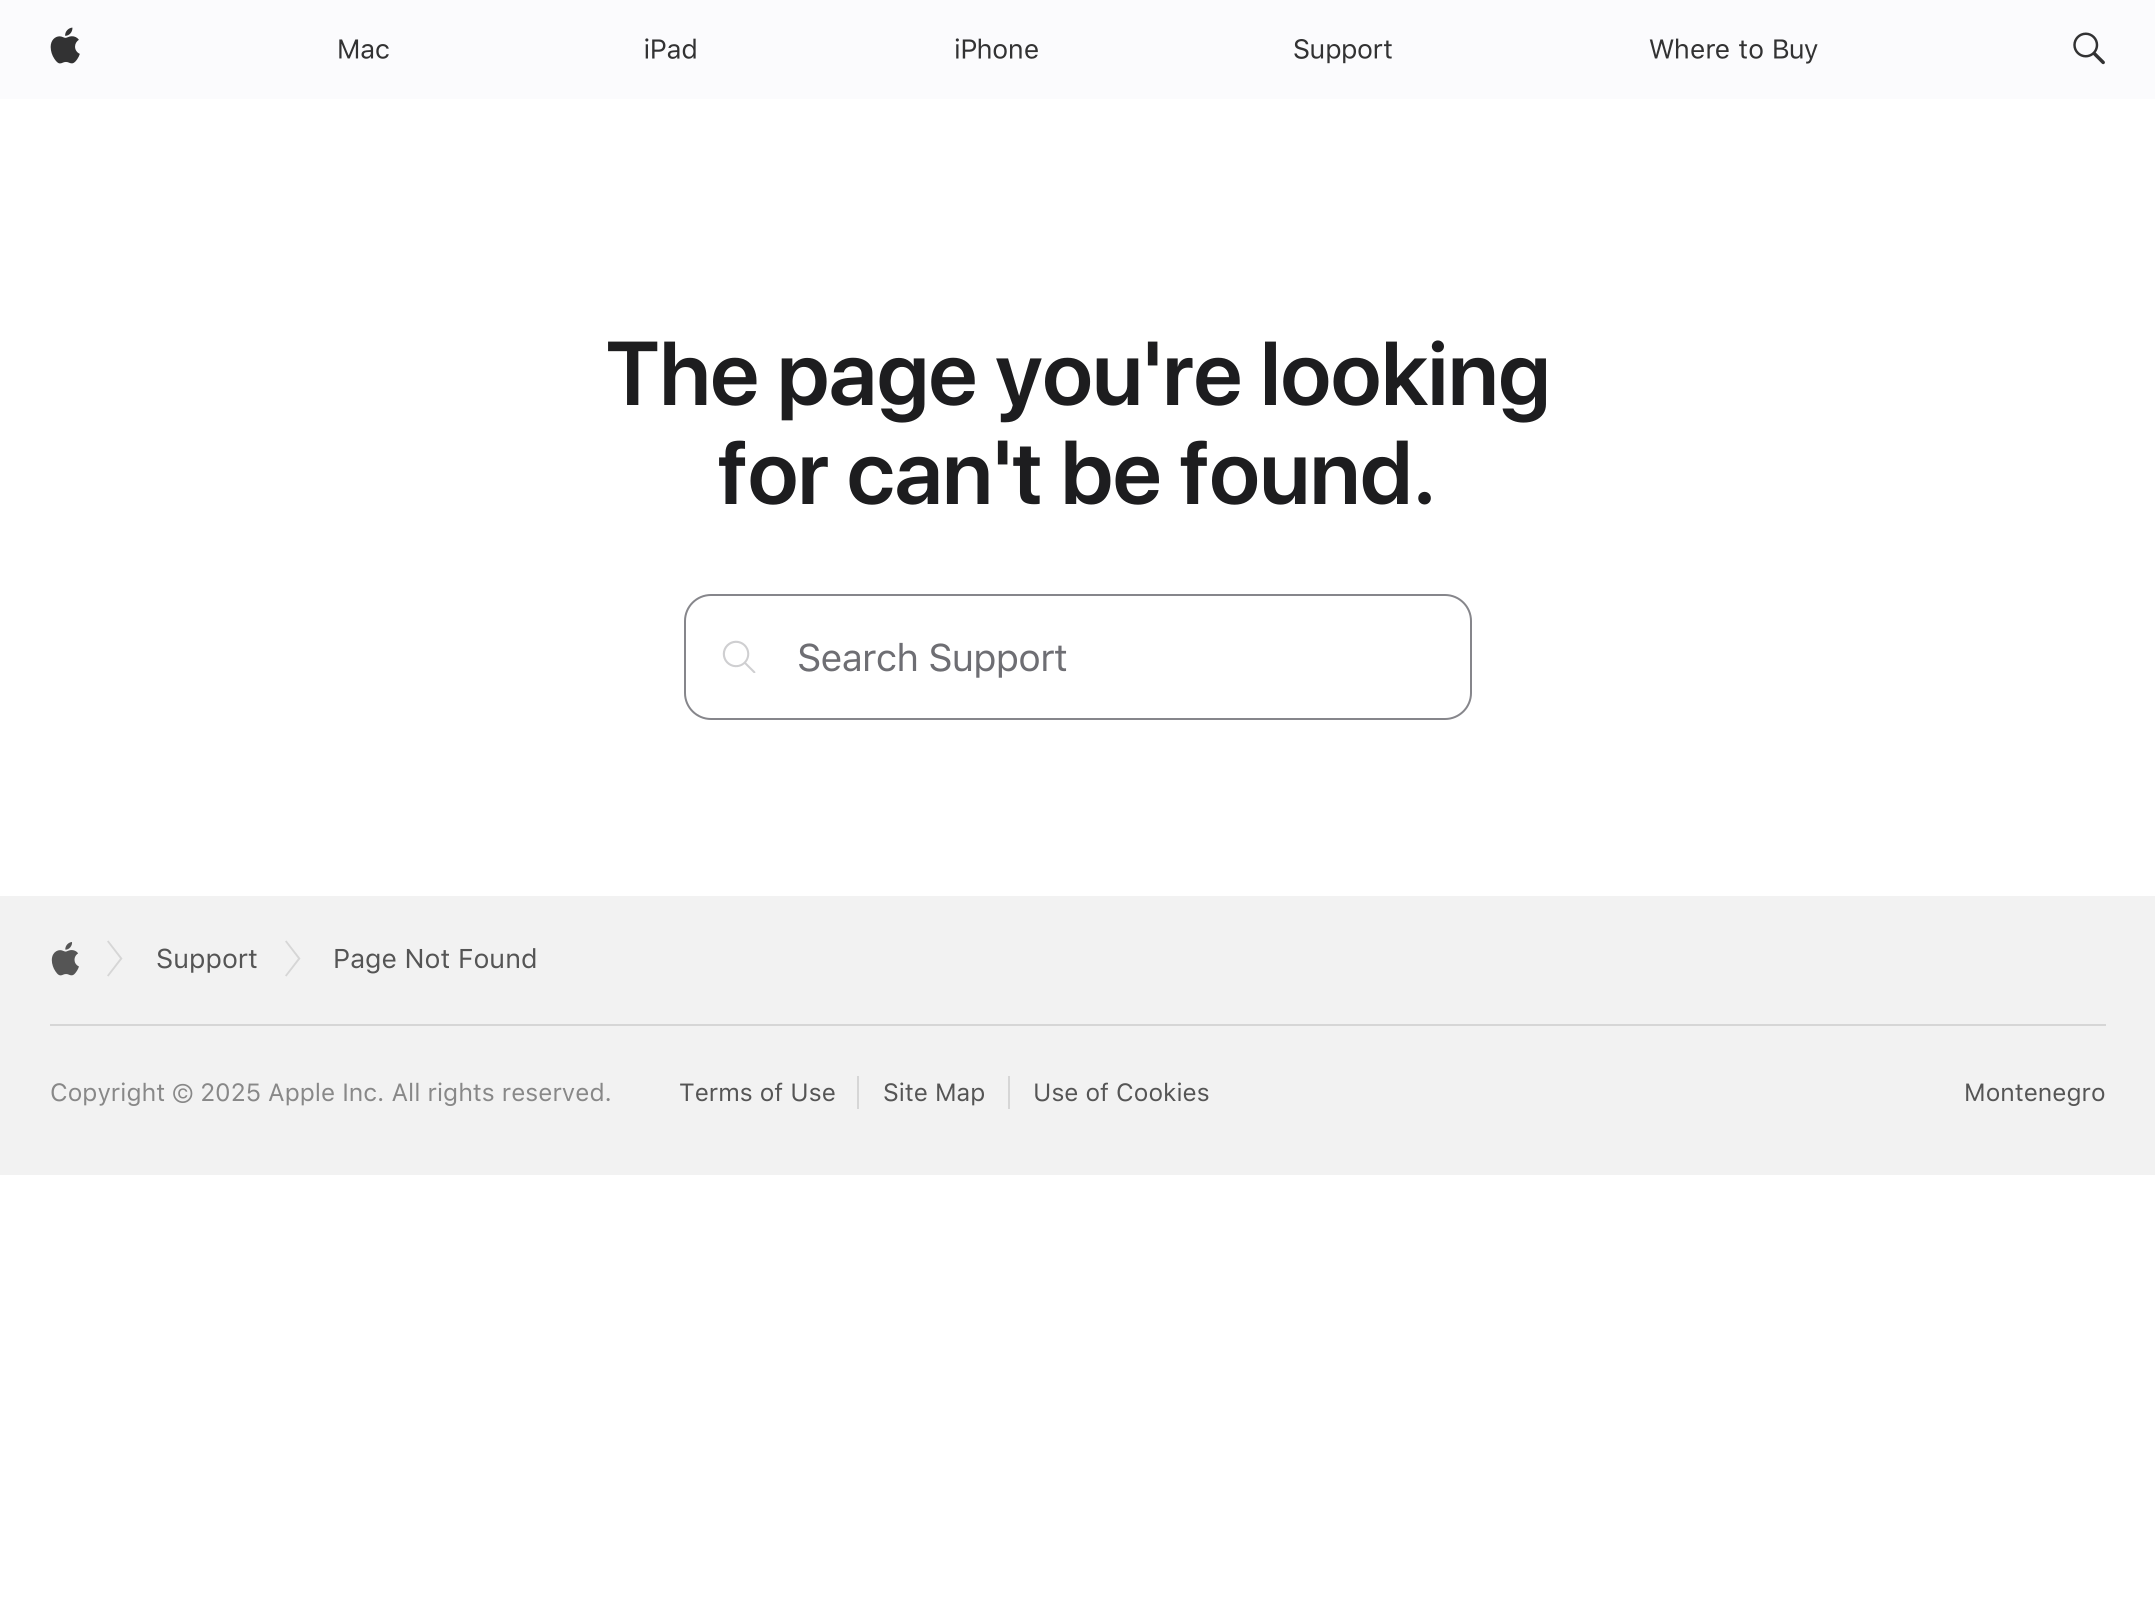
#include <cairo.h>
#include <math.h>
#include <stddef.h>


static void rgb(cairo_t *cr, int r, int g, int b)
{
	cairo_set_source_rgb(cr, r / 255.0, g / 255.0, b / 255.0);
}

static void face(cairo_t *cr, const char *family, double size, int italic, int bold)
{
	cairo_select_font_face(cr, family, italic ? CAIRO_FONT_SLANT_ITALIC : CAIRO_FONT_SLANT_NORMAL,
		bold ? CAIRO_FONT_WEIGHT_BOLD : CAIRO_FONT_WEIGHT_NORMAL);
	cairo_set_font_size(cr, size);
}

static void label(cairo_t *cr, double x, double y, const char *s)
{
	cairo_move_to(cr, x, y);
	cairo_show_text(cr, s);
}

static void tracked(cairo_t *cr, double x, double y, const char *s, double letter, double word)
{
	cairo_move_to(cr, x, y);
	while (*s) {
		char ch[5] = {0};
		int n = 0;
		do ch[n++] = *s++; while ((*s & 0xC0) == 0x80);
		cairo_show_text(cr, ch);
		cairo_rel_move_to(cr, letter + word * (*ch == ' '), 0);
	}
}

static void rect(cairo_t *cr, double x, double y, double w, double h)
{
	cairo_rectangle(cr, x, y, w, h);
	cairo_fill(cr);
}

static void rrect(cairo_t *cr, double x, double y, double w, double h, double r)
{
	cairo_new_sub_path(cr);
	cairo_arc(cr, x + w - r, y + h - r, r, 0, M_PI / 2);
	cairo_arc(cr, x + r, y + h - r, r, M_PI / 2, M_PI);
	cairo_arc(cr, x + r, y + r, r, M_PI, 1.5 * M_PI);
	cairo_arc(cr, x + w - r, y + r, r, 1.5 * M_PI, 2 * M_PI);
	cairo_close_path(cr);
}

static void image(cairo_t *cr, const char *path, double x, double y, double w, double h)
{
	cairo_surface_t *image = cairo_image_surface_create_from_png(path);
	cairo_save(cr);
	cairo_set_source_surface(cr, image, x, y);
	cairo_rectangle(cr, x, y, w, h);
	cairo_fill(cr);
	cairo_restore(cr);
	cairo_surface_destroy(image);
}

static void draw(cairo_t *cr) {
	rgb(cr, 255, 255, 255);
	cairo_paint(cr);
	rgb(cr, 251, 251, 253);
	rect(cr, 0, 0, 2155, 99);
	image(cr, "image0.png", 50, 27, 30, 37);
	image(cr, "image1.png", 339, 39, 50, 20);
	image(cr, "image2.png", 645, 38, 51, 21);
	image(cr, "image3.png", 955, 38, 83, 21);
	image(cr, "image4.png", 1294, 39, 98, 25);
	image(cr, "image5.png", 1649, 38, 169, 26);
	image(cr, "image6.png", 2073, 32, 32, 33);
	face(cr, "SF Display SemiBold", 90, 0, 0);
	rgb(cr, 29, 29, 31);
	label(cr, 606, 405, "The page you're looking");
	label(cr, 718, 504, "for can't be found.");
	rrect(cr, 685, 595, 786, 124, 26);
	rgb(cr, 134, 134, 139);
	cairo_stroke(cr);
	image(cr, "image7.png", 722, 640, 34, 33);
	face(cr, "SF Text", 38.25, 0, 0);
	rgb(cr, 110, 110, 115);
	tracked(cr, 797, 671, "Search Support", -0.8, 0);
	rgb(cr, 242, 242, 242);
	rect(cr, 0, 896, 2155, 279);
	image(cr, "image8.png", 51, 942, 28, 34);
	rgb(cr, 214, 214, 214);
	cairo_new_path(cr);
	cairo_move_to(cr, 108.5, 940.5);
	cairo_line_to(cr, 122.5, 958.5);
	cairo_line_to(cr, 108.5, 976.5);
	cairo_line_to(cr, 107, 975.5);
	cairo_line_to(cr, 120, 958.5);
	cairo_line_to(cr, 107, 941.5);
	cairo_close_path(cr);
	cairo_fill(cr);
	face(cr, "SF Text", 27, 0, 0);
	rgb(cr, 85, 85, 85);
	label(cr, 156, 968, "Support");
	rgb(cr, 214, 214, 214);
	cairo_new_path(cr);
	cairo_move_to(cr, 286.5, 940.5);
	cairo_line_to(cr, 300.5, 958.5);
	cairo_line_to(cr, 286.5, 976.5);
	cairo_line_to(cr, 285, 975.5);
	cairo_line_to(cr, 298, 958.5);
	cairo_line_to(cr, 285, 941.5);
	cairo_close_path(cr);
	cairo_fill(cr);
	rgb(cr, 85, 85, 85);
	label(cr, 333, 968, "Page Not Found");
	rgb(cr, 214, 214, 214);
	rect(cr, 50, 1024, 2056, 2);
	face(cr, "SF Text", 24.75, 0, 0);
	rgb(cr, 136, 136, 136);
	label(cr, 50, 1101, "Copyright © 2025 Apple Inc. All rights reserved.");
	rgb(cr, 214, 214, 214);
	rect(cr, 857, 1076, 2, 33);
	rgb(cr, 85, 85, 85);
	label(cr, 679, 1101, "Terms of Use");
	rgb(cr, 214, 214, 214);
	rect(cr, 1008, 1076, 2, 33);
	rgb(cr, 85, 85, 85);
	label(cr, 883, 1101, "Site Map");
	label(cr, 1033, 1101, "Use of Cookies");
	label(cr, 1964, 1101, "Montenegro");
}

int main(void) {
	cairo_surface_t *surface = cairo_image_surface_create(CAIRO_FORMAT_RGB24, 2155, 1620);
	cairo_t *cr = cairo_create(surface);
	cairo_font_options_t *options = cairo_font_options_create();
	cairo_font_options_set_hint_metrics(options, CAIRO_HINT_METRICS_OFF);
	cairo_font_options_set_hint_style(options, CAIRO_HINT_STYLE_NONE);
	cairo_set_font_options(cr, options);
	cairo_set_miter_limit(cr, 4);
	draw(cr);
	cairo_surface_write_to_png(surface, "render.png");
	cairo_font_options_destroy(options);
	cairo_destroy(cr);
	cairo_surface_destroy(surface);
	return 0;
}
